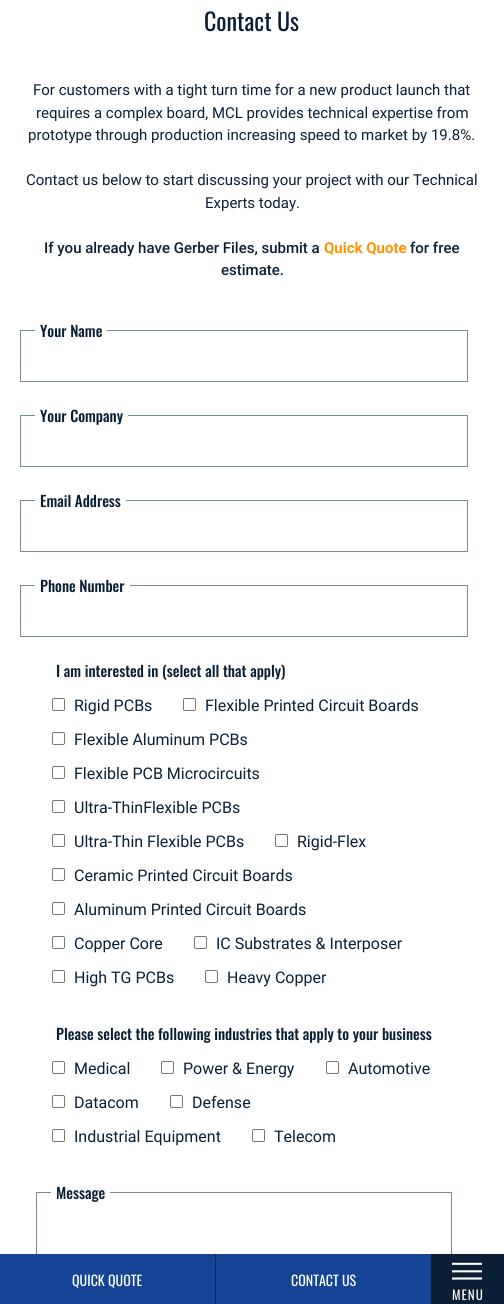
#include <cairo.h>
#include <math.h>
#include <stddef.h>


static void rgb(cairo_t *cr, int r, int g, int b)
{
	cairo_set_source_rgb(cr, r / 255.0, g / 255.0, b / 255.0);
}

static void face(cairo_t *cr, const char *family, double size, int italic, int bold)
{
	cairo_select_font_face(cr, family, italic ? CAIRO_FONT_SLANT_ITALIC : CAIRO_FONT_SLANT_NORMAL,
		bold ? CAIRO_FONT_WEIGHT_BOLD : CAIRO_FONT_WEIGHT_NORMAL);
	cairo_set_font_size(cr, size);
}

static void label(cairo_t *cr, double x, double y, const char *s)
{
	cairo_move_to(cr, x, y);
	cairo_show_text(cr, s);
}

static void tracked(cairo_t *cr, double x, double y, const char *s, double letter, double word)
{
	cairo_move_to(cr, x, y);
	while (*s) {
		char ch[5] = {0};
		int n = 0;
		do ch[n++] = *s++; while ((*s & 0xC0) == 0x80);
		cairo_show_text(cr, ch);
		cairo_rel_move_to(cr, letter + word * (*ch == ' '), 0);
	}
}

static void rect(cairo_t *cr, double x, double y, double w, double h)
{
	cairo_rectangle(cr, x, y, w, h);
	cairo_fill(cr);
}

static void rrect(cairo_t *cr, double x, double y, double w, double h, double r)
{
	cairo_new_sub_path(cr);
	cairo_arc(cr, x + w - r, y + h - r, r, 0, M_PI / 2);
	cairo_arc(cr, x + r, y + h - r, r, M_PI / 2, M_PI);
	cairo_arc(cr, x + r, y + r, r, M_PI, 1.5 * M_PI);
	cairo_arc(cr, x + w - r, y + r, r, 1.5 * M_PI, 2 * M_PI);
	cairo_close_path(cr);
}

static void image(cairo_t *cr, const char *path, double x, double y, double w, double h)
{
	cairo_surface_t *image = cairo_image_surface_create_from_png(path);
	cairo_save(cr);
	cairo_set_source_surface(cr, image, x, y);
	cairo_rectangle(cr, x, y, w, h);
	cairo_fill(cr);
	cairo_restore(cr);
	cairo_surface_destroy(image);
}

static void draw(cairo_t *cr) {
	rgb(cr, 255, 255, 255);
	cairo_paint(cr);
	face(cr, "Oswald", 24, 0, 0);
	rgb(cr, 10, 31, 52);
	label(cr, 204, 31, "Contact Us");
	face(cr, "Roboto", 15, 0, 0);
	label(cr, 33, 95, "For customers with a tight turn time for a new product launch that");
	label(cr, 36, 118, "requires a complex board, MCL provides technical expertise from");
	label(cr, 28, 140, "prototype through production increasing speed to market by 19.8%.");
	label(cr, 26, 185, "Contact us below to start discussing your project with our Technical");
	label(cr, 205, 208, "Experts today.");
	face(cr, "Roboto Medium", 15, 0, 0);
	label(cr, 44, 253, "If you already have Gerber Files, submit a");
	face(cr, "Roboto", 15, 0, 1);
	rgb(cr, 255, 147, 0);
	label(cr, 324, 253, "Quick Quote");
	face(cr, "Roboto Medium", 15, 0, 0);
	rgb(cr, 10, 31, 52);
	label(cr, 410, 253, "for free");
	label(cr, 221, 275, "estimate.");
	cairo_rectangle(cr, 20.5, 330.5, 447, 51);
	rgb(cr, 116, 140, 151);
	cairo_set_line_width(cr, 1);
	cairo_stroke(cr);
	rgb(cr, 255, 255, 255);
	rect(cr, 35, 330, 72, 1);
	face(cr, "Oswald Medium", 15, 0, 0);
	rgb(cr, 10, 31, 52);
	label(cr, 40, 337, "Your Name");
	cairo_rectangle(cr, 20.5, 415.5, 447, 51);
	rgb(cr, 116, 140, 151);
	cairo_stroke(cr);
	rgb(cr, 255, 255, 255);
	rect(cr, 35, 415, 93, 1);
	rgb(cr, 10, 31, 52);
	label(cr, 40, 422, "Your Company");
	cairo_rectangle(cr, 20.5, 500.5, 447, 51);
	rgb(cr, 116, 140, 151);
	cairo_stroke(cr);
	rgb(cr, 255, 255, 255);
	rect(cr, 35, 500, 91, 1);
	rgb(cr, 10, 31, 52);
	label(cr, 40, 507, "Email Address");
	cairo_rectangle(cr, 20.5, 585.5, 447, 51);
	rgb(cr, 116, 140, 151);
	cairo_stroke(cr);
	rgb(cr, 255, 255, 255);
	rect(cr, 35, 585, 95, 1);
	rgb(cr, 10, 31, 52);
	label(cr, 40, 592, "Phone Number");
	label(cr, 56, 677, "I am interested in (select all that apply)");
	rrect(cr, 52.5, 698.5, 12, 12, 1.5);
	rgb(cr, 118, 118, 118);
	cairo_stroke(cr);
	face(cr, "Roboto", 16, 0, 0);
	rgb(cr, 10, 31, 52);
	label(cr, 74, 711, "Rigid PCBs");
	rrect(cr, 183.5, 698.5, 12, 12, 1.5);
	rgb(cr, 118, 118, 118);
	cairo_stroke(cr);
	rgb(cr, 10, 31, 52);
	label(cr, 205, 711, "Flexible Printed Circuit Boards");
	rrect(cr, 52.5, 732.5, 12, 12, 1.5);
	rgb(cr, 118, 118, 118);
	cairo_stroke(cr);
	rgb(cr, 10, 31, 52);
	label(cr, 74, 745, "Flexible Aluminum PCBs");
	rrect(cr, 52.5, 766.5, 12, 12, 1.5);
	rgb(cr, 118, 118, 118);
	cairo_stroke(cr);
	rgb(cr, 10, 31, 52);
	label(cr, 74, 779, "Flexible PCB Microcircuits");
	rrect(cr, 52.5, 800.5, 12, 12, 1.5);
	rgb(cr, 118, 118, 118);
	cairo_stroke(cr);
	rgb(cr, 10, 31, 52);
	label(cr, 74, 813, "Ultra-ThinFlexible PCBs");
	rrect(cr, 52.5, 834.5, 12, 12, 1.5);
	rgb(cr, 118, 118, 118);
	cairo_stroke(cr);
	rgb(cr, 10, 31, 52);
	label(cr, 74, 847, "Ultra-Thin Flexible PCBs");
	rrect(cr, 275.5, 834.5, 12, 12, 1.5);
	rgb(cr, 118, 118, 118);
	cairo_stroke(cr);
	rgb(cr, 10, 31, 52);
	label(cr, 297, 847, "Rigid-Flex");
	rrect(cr, 52.5, 868.5, 12, 12, 1.5);
	rgb(cr, 118, 118, 118);
	cairo_stroke(cr);
	rgb(cr, 10, 31, 52);
	label(cr, 74, 881, "Ceramic Printed Circuit Boards");
	rrect(cr, 52.5, 902.5, 12, 12, 1.5);
	rgb(cr, 118, 118, 118);
	cairo_stroke(cr);
	rgb(cr, 10, 31, 52);
	label(cr, 74, 915, "Aluminum Printed Circuit Boards");
	rrect(cr, 52.5, 936.5, 12, 12, 1.5);
	rgb(cr, 118, 118, 118);
	cairo_stroke(cr);
	rgb(cr, 10, 31, 52);
	label(cr, 74, 949, "Copper Core");
	rrect(cr, 194.5, 936.5, 12, 12, 1.5);
	rgb(cr, 118, 118, 118);
	cairo_stroke(cr);
	rgb(cr, 10, 31, 52);
	label(cr, 216, 949, "IC Substrates & Interposer");
	rrect(cr, 52.5, 970.5, 12, 12, 1.5);
	rgb(cr, 118, 118, 118);
	cairo_stroke(cr);
	rgb(cr, 10, 31, 52);
	label(cr, 74, 983, "High TG PCBs");
	rrect(cr, 205.5, 970.5, 12, 12, 1.5);
	rgb(cr, 118, 118, 118);
	cairo_stroke(cr);
	rgb(cr, 10, 31, 52);
	label(cr, 227, 983, "Heavy Copper");
	face(cr, "Oswald Medium", 15, 0, 0);
	label(cr, 56, 1040, "Please select the following industries that apply to your business");
	rrect(cr, 52.5, 1061.5, 12, 12, 1.5);
	rgb(cr, 118, 118, 118);
	cairo_stroke(cr);
	face(cr, "Roboto", 16, 0, 0);
	rgb(cr, 10, 31, 52);
	label(cr, 74, 1074, "Medical");
	rrect(cr, 161.5, 1061.5, 12, 12, 1.5);
	rgb(cr, 118, 118, 118);
	cairo_stroke(cr);
	rgb(cr, 10, 31, 52);
	label(cr, 183, 1074, "Power & Energy");
	rrect(cr, 326.5, 1061.5, 12, 12, 1.5);
	rgb(cr, 118, 118, 118);
	cairo_stroke(cr);
	rgb(cr, 10, 31, 52);
	label(cr, 348, 1074, "Automotive");
	rrect(cr, 52.5, 1095.5, 12, 12, 1.5);
	rgb(cr, 118, 118, 118);
	cairo_stroke(cr);
	rgb(cr, 10, 31, 52);
	label(cr, 74, 1108, "Datacom");
	rrect(cr, 170.5, 1095.5, 12, 12, 1.5);
	rgb(cr, 118, 118, 118);
	cairo_stroke(cr);
	rgb(cr, 10, 31, 52);
	label(cr, 192, 1108, "Defense");
	rrect(cr, 52.5, 1129.5, 12, 12, 1.5);
	rgb(cr, 118, 118, 118);
	cairo_stroke(cr);
	rgb(cr, 10, 31, 52);
	label(cr, 74, 1142, "Industrial Equipment");
	rrect(cr, 252.5, 1129.5, 12, 12, 1.5);
	rgb(cr, 118, 118, 118);
	cairo_stroke(cr);
	rgb(cr, 10, 31, 52);
	label(cr, 274, 1142, "Telecom");
	cairo_rectangle(cr, 36.5, 1192.5, 415, 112);
	rgb(cr, 116, 140, 151);
	cairo_stroke(cr);
	rgb(cr, 255, 255, 255);
	rect(cr, 51, 1192, 59, 1);
	face(cr, "Oswald Medium", 15, 0, 0);
	rgb(cr, 10, 31, 52);
	label(cr, 56, 1199, "Message");
	rgb(cr, 21, 67, 150);
	rect(cr, 0, 1254, 431, 50);
	rgb(cr, 10, 38, 111);
	rect(cr, 215, 1254, 1, 50);
	face(cr, "Oswald", 14, 0, 0);
	rgb(cr, 255, 255, 255);
	label(cr, 72, 1286, "QUICK QUOTE");
	label(cr, 291, 1286, "CONTACT US");
	rgb(cr, 10, 31, 52);
	rect(cr, 431, 1254, 73, 50);
	image(cr, "image0.png", 452, 1262, 30, 18);
	face(cr, "Oswald", 13, 0, 0);
	rgb(cr, 255, 255, 255);
	tracked(cr, 452, 1300, "MENU", 1, 0);
}

int main(void) {
	cairo_surface_t *surface = cairo_image_surface_create(CAIRO_FORMAT_RGB24, 504, 1304);
	cairo_t *cr = cairo_create(surface);
	cairo_font_options_t *options = cairo_font_options_create();
	cairo_font_options_set_hint_metrics(options, CAIRO_HINT_METRICS_OFF);
	cairo_font_options_set_hint_style(options, CAIRO_HINT_STYLE_NONE);
	cairo_set_font_options(cr, options);
	cairo_set_miter_limit(cr, 4);
	draw(cr);
	cairo_surface_write_to_png(surface, "render.png");
	cairo_font_options_destroy(options);
	cairo_destroy(cr);
	cairo_surface_destroy(surface);
	return 0;
}
